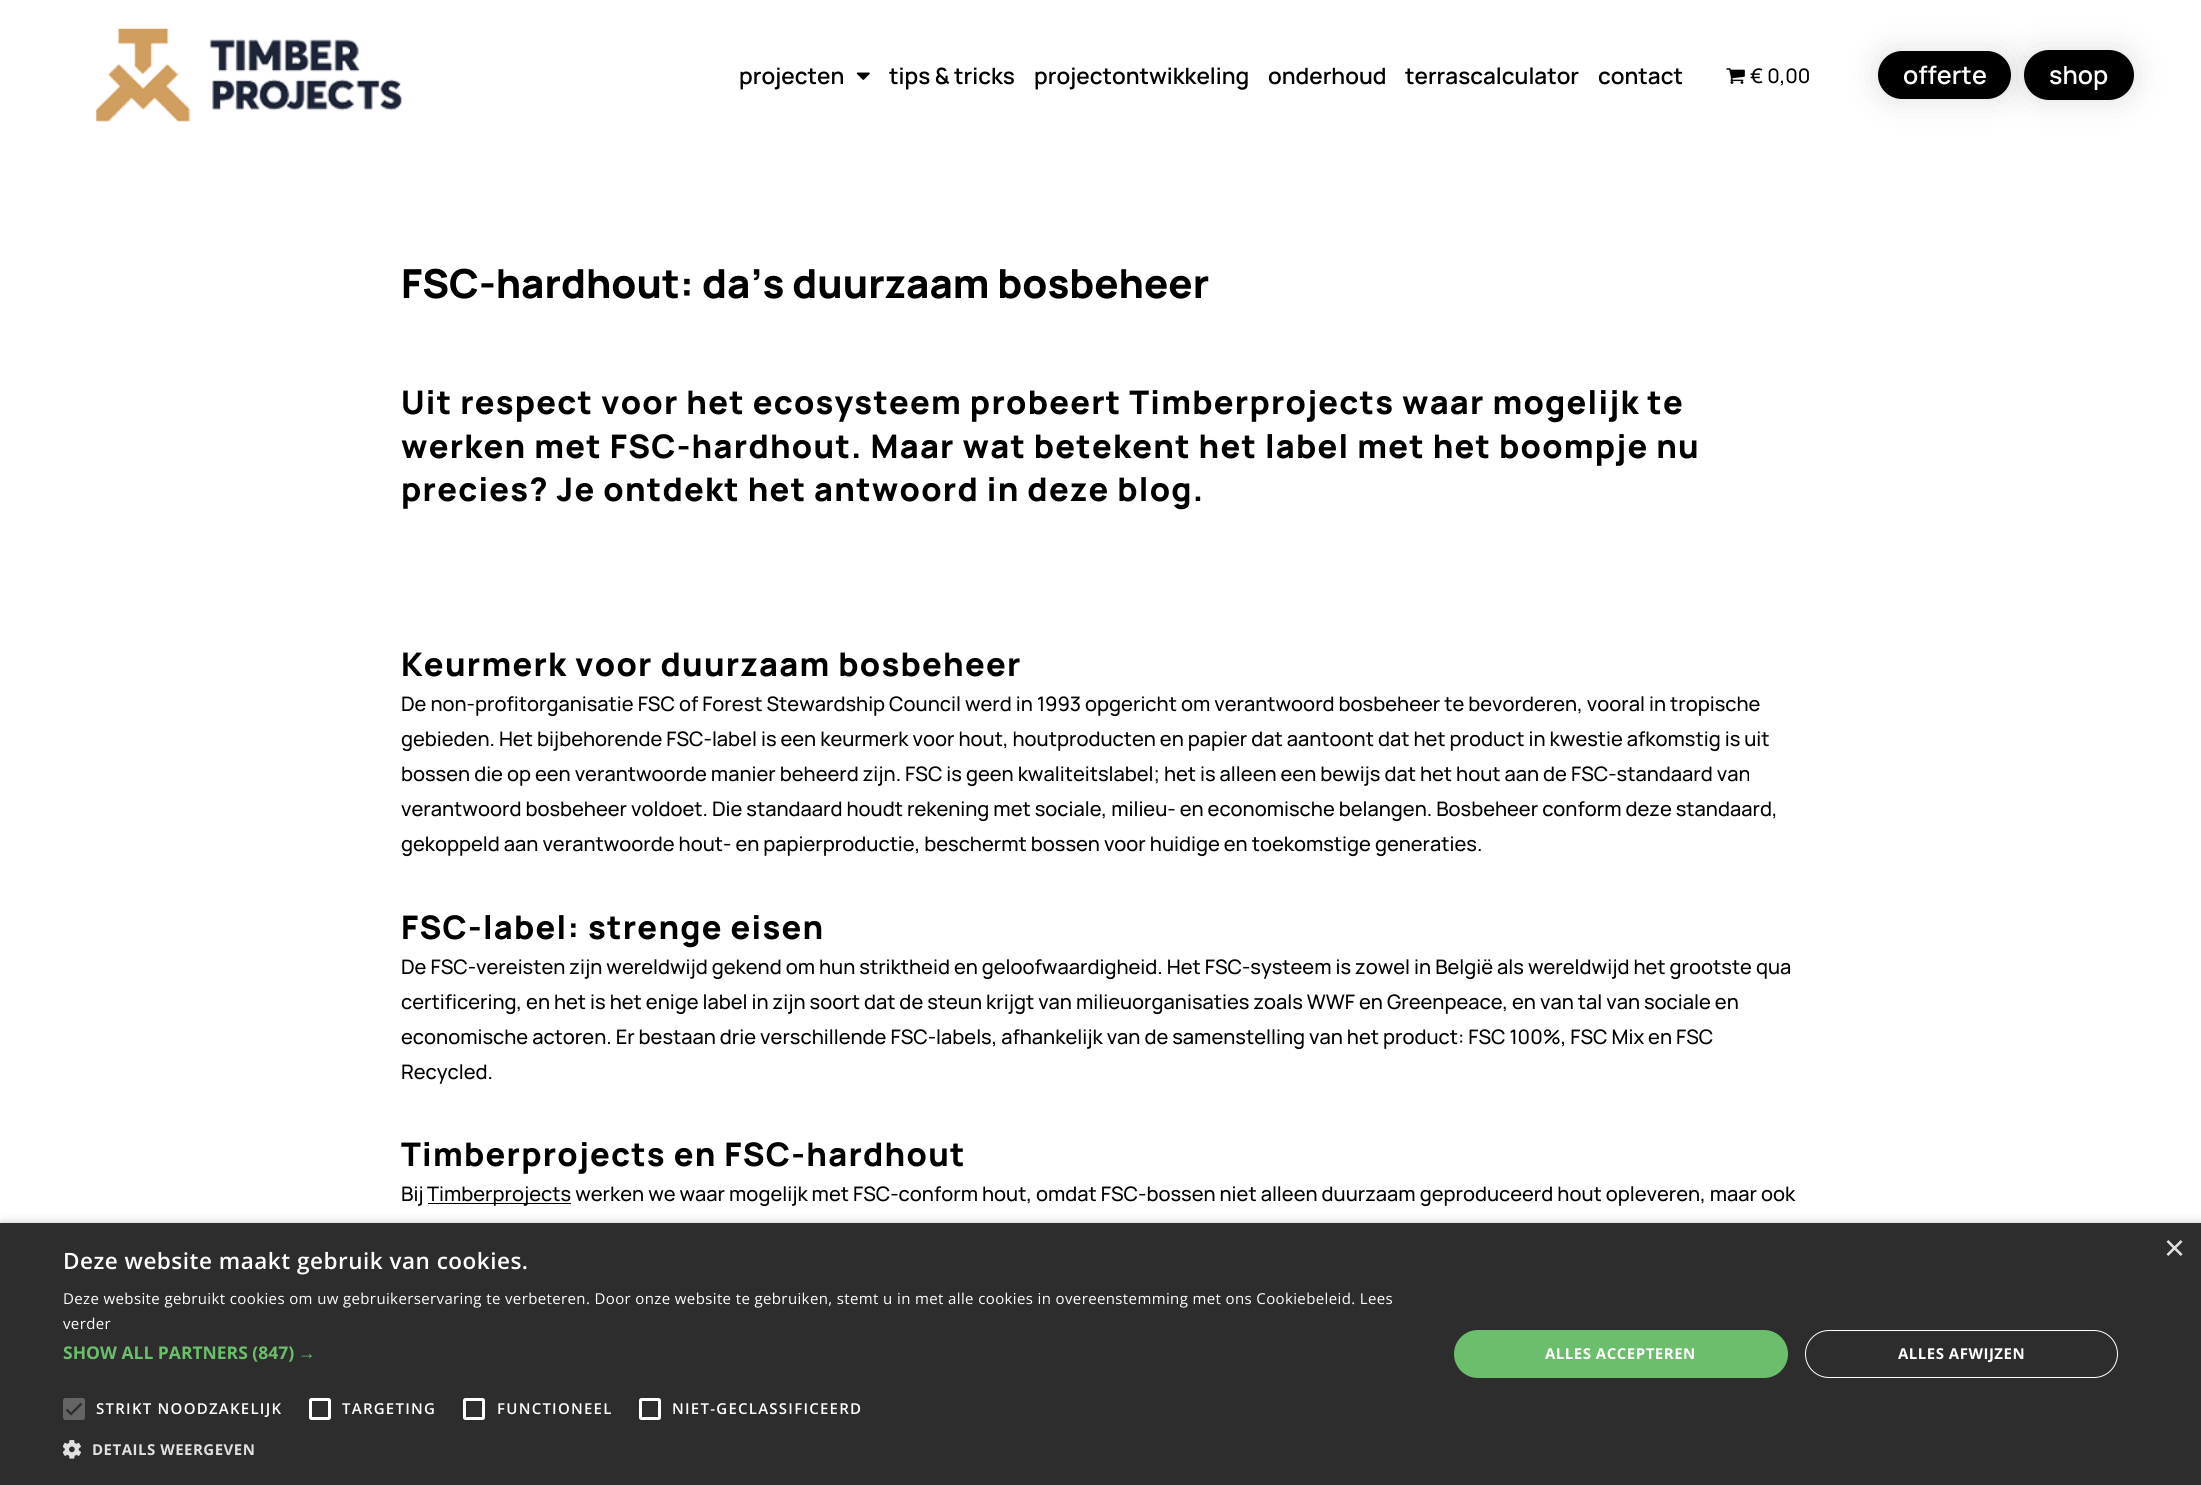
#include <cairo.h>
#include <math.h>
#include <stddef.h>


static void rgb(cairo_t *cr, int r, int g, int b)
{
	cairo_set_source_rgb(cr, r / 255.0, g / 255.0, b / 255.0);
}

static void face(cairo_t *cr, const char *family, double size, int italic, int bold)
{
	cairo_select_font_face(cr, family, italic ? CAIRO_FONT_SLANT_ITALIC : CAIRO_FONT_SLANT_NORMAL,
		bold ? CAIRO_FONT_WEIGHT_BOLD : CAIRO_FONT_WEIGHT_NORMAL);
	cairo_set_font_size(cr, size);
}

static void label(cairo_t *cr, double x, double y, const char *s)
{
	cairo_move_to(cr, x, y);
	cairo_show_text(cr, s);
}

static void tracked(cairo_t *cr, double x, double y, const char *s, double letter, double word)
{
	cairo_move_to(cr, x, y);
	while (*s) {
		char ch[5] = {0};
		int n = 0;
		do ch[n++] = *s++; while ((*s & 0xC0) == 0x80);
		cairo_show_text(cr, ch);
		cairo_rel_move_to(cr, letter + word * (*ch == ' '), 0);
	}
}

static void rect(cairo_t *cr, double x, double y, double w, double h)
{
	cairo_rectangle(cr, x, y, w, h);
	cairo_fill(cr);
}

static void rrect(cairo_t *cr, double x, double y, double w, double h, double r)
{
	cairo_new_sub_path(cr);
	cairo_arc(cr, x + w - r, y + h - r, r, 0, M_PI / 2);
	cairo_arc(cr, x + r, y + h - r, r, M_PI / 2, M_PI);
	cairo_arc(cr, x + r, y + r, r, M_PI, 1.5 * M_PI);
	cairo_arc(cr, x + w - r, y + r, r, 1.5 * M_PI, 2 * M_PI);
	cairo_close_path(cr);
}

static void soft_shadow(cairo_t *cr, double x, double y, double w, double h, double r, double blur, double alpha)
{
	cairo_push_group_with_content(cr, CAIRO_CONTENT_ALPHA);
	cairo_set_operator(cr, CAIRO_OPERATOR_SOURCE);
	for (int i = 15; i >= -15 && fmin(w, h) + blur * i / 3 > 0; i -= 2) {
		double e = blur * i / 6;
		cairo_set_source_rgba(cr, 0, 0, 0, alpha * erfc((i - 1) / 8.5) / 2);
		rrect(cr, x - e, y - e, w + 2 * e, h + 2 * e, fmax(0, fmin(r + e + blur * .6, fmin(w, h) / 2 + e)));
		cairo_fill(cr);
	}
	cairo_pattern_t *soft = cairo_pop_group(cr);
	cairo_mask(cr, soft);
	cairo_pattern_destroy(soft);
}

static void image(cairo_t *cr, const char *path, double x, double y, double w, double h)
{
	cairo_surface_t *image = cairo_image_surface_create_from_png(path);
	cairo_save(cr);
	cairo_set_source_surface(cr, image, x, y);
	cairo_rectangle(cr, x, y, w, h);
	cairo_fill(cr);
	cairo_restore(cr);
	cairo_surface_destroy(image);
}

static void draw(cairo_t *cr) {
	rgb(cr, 255, 255, 255);
	cairo_paint(cr);
	image(cr, "image0.png", 96, 28, 306, 94);
	face(cr, "Manrope SemiBold", 22.5, 0, 0);
	rgb(cr, 0, 0, 0);
	label(cr, 739, 84, "projecten");
	image(cr, "image1.png", 856, 72, 14, 8);
	label(cr, 889, 84, "tips & tricks");
	label(cr, 1034, 84, "projectontwikkeling");
	label(cr, 1268, 84, "onderhoud");
	label(cr, 1405, 84, "terrascalculator");
	label(cr, 1598, 84, "contact");
	image(cr, "image2.png", 1726, 68, 19, 16);
	face(cr, "Manrope Medium", 20, 0, 0);
	label(cr, 1750, 83, "€ 0,00");
	rgb(cr, 0, 0, 0);
	soft_shadow(cr, 1878, 51, 133, 48, 24, 17, 0.12);
	rgb(cr, 0, 0, 0);
	rrect(cr, 1878, 51, 133, 48, 24);
	cairo_fill(cr);
	face(cr, "Manrope SemiBold", 25, 0, 0);
	rgb(cr, 255, 255, 255);
	label(cr, 1903, 84, "offerte");
	rgb(cr, 0, 0, 0);
	soft_shadow(cr, 2024, 50, 110, 50, 25, 17, 0.12);
	rgb(cr, 0, 0, 0);
	rrect(cr, 2024, 50, 110, 50, 25);
	cairo_fill(cr);
	rgb(cr, 255, 255, 255);
	label(cr, 2049, 84, "shop");
	face(cr, "Manrope ExtraBold", 40, 0, 0);
	rgb(cr, 0, 0, 0);
	label(cr, 401, 298, "FSC-hardhout: da’s duurzaam bosbeheer");
	face(cr, "Manrope ExtraBold", 32.5, 0, 0);
	tracked(cr, 401, 414, "Uit respect voor het ecosysteem probeert Timberprojects waar mogelijk te", 1.25, 0);
	tracked(cr, 401, 458, "werken met FSC-hardhout. Maar wat betekent het label met het boompje nu", 1.25, 0);
	tracked(cr, 401, 501, "precies? Je ontdekt het antwoord in deze blog.", 1.25, 0);
	tracked(cr, 401, 676, "Keurmerk voor duurzaam bosbeheer", 1.25, 0);
	face(cr, "Manrope Medium", 20, 0, 0);
	label(cr, 401, 711, "De non-profitorganisatie FSC of Forest Stewardship Council werd in 1993 opgericht om verantwoord bosbeheer te bevorderen, vooral in tropische");
	label(cr, 401, 746, "gebieden. Het bijbehorende FSC-label is een keurmerk voor hout, houtproducten en papier dat aantoont dat het product in kwestie afkomstig is uit");
	label(cr, 401, 781, "bossen die op een verantwoorde manier beheerd zijn. FSC is geen kwaliteitslabel; het is alleen een bewijs dat het hout aan de FSC-standaard van");
	label(cr, 401, 816, "verantwoord bosbeheer voldoet. Die standaard houdt rekening met sociale, milieu- en economische belangen. Bosbeheer conform deze standaard,");
	label(cr, 401, 851, "gekoppeld aan verantwoorde hout- en papierproductie, beschermt bossen voor huidige en toekomstige generaties.");
	face(cr, "Manrope ExtraBold", 32.5, 0, 0);
	tracked(cr, 401, 939, "FSC-label: strenge eisen", 1.25, 0);
	face(cr, "Manrope Medium", 20, 0, 0);
	label(cr, 401, 974, "De FSC-vereisten zijn wereldwijd gekend om hun striktheid en geloofwaardigheid. Het FSC-systeem is zowel in België als wereldwijd het grootste qua");
	label(cr, 401, 1009, "certificering, en het is het enige label in zijn soort dat de steun krijgt van milieuorganisaties zoals WWF en Greenpeace, en van tal van sociale en");
	label(cr, 401, 1044, "economische actoren. Er bestaan drie verschillende FSC-labels, afhankelijk van de samenstelling van het product: FSC 100%, FSC Mix en FSC");
	label(cr, 401, 1079, "Recycled.");
	face(cr, "Manrope ExtraBold", 32.5, 0, 0);
	tracked(cr, 401, 1166, "Timberprojects en FSC-hardhout", 1.25, 0);
	face(cr, "Manrope Medium", 20, 0, 0);
	label(cr, 401, 1201, "Bij");
	rect(cr, 428, 1203, 143, 1);
	label(cr, 427, 1201, "Timberprojects werken we waar mogelijk met FSC-conform hout, omdat FSC-bossen niet alleen duurzaam geproduceerd hout opleveren, maar ook");
	rgb(cr, 0, 0, 0);
	soft_shadow(cr, 1, 1225, 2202, 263, 0, 5, 0.35);
	rgb(cr, 45, 45, 45);
	rect(cr, 0, 1223, 2201, 262);
	face(cr, "Liberation Sans", 36, 0, 0);
	rgb(cr, 224, 224, 224);
	label(cr, 2164, 1260, "×");
	face(cr, "Open Sans SemiBold", 22.5, 0, 0);
	rgb(cr, 255, 255, 255);
	tracked(cr, 63, 1269, "Deze website maakt gebruik van cookies.", 0.5, 0);
	face(cr, "Open Sans", 15, 0, 0);
	tracked(cr, 63, 1304, "Deze website gebruikt cookies om uw gebruikerservaring te verbeteren. Door onze website te gebruiken, stemt u in met alle cookies in overeenstemming met ons Cookiebeleid. Lees", 0.38, 0);
	tracked(cr, 63, 1329, "verder", 0.38, 0);
	face(cr, "Open Sans", 17.5, 0, 1);
	rgb(cr, 107, 190, 107);
	label(cr, 63, 1359, "SHOW ALL PARTNERS (847)");
	face(cr, "Liberation Sans", 17.5, 0, 1);
	label(cr, 298, 1359, "→");
	rgb(cr, 100, 100, 100);
	rrect(cr, 63, 1398, 22, 22, 2.5);
	cairo_fill(cr);
	cairo_new_path(cr);
	cairo_move_to(cr, 66.5, 1409.5);
	cairo_line_to(cr, 71, 1414);
	cairo_line_to(cr, 81.5, 1403.5);
	rgb(cr, 45, 45, 45);
	cairo_set_line_width(cr, 2.3);
	cairo_stroke(cr);
	face(cr, "Open Sans SemiBold", 15, 0, 0);
	rgb(cr, 255, 255, 255);
	tracked(cr, 96, 1414, "STRIKT NOODZAKELIJK", 1.25, 0);
	rrect(cr, 310.5, 1399.5, 19, 19, 1);
	cairo_set_line_width(cr, 3);
	cairo_stroke(cr);
	tracked(cr, 342, 1414, "TARGETING", 1.25, 0);
	rrect(cr, 464.5, 1399.5, 19, 19, 1);
	cairo_stroke(cr);
	tracked(cr, 497, 1414, "FUNCTIONEEL", 1.25, 0);
	rrect(cr, 640.5, 1399.5, 19, 19, 1);
	cairo_stroke(cr);
	tracked(cr, 672, 1414, "NIET-GECLASSIFICEERD", 1.25, 0);
	image(cr, "image3.png", 63, 1440, 18, 19);
	face(cr, "Open Sans", 15, 0, 1);
	rgb(cr, 224, 224, 224);
	tracked(cr, 92, 1455, "DETAILS WEERGEVEN", 0.5, 0);
	rgb(cr, 107, 190, 107);
	rrect(cr, 1454, 1330, 334, 48, 24);
	cairo_fill(cr);
	rgb(cr, 255, 255, 255);
	tracked(cr, 1545, 1359, "ALLES ACCEPTEREN", 0.5, 0);
	rrect(cr, 1805.5, 1330.5, 312, 47, 23.5);
	cairo_set_line_width(cr, 1);
	cairo_stroke(cr);
	tracked(cr, 1898, 1359, "ALLES AFWIJZEN", 0.5, 0);
}

int main(void) {
	cairo_surface_t *surface = cairo_image_surface_create(CAIRO_FORMAT_RGB24, 2201, 1485);
	cairo_t *cr = cairo_create(surface);
	cairo_font_options_t *options = cairo_font_options_create();
	cairo_font_options_set_hint_metrics(options, CAIRO_HINT_METRICS_OFF);
	cairo_font_options_set_hint_style(options, CAIRO_HINT_STYLE_NONE);
	cairo_set_font_options(cr, options);
	cairo_set_miter_limit(cr, 4);
	draw(cr);
	cairo_surface_write_to_png(surface, "render.png");
	cairo_font_options_destroy(options);
	cairo_destroy(cr);
	cairo_surface_destroy(surface);
	return 0;
}
